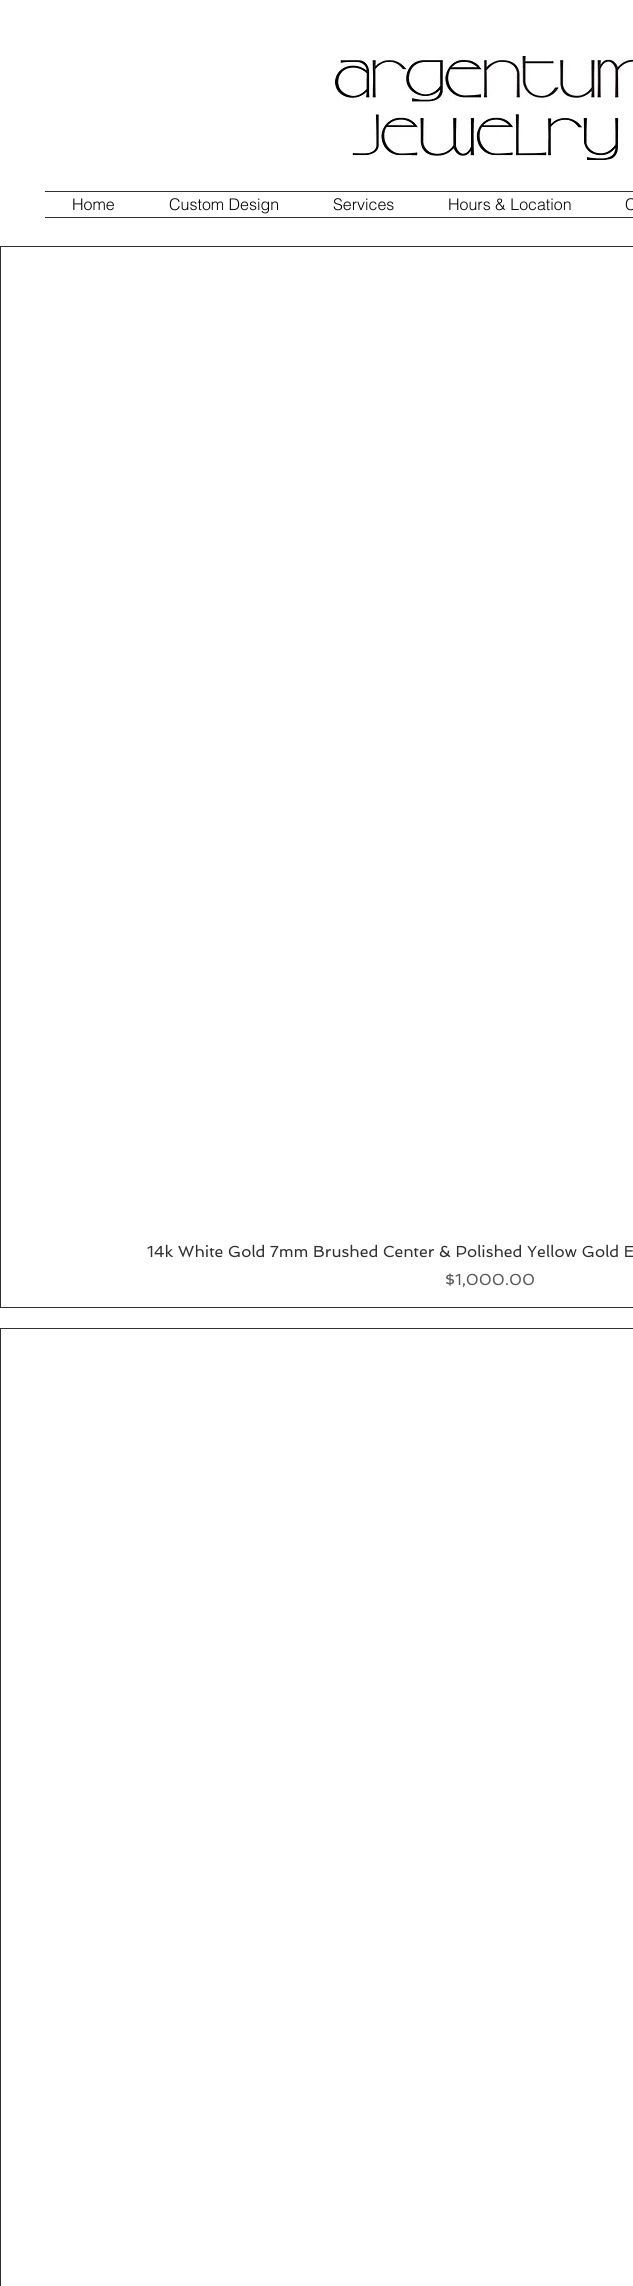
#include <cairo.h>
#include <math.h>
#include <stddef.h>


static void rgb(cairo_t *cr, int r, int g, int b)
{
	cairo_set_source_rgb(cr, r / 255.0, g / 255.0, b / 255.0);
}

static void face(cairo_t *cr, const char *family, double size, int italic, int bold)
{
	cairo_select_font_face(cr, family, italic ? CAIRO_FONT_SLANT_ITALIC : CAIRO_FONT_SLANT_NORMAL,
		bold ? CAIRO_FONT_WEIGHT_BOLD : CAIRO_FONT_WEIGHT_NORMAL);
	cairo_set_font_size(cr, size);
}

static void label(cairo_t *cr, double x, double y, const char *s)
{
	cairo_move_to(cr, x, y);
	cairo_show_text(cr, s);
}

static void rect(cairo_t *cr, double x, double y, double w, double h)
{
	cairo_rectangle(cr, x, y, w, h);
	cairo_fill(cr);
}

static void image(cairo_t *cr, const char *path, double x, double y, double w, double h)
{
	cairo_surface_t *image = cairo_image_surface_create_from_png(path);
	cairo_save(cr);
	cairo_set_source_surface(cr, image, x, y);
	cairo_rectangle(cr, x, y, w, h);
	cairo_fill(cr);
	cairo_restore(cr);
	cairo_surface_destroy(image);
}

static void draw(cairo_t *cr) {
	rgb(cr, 255, 255, 255);
	cairo_paint(cr);
	image(cr, "image0.png", 335, 56, 298, 104);
	rgb(cr, 48, 48, 48);
	rect(cr, 45, 191, 588, 1);
	rect(cr, 45, 217, 588, 1);
	face(cr, "helvetica Light", 16, 0, 0);
	rgb(cr, 0, 0, 0);
	label(cr, 72, 210, "Home");
	label(cr, 169, 210, "Custom Design");
	label(cr, 333, 210, "Services");
	label(cr, 448, 210, "Hours & Location");
	label(cr, 625, 210, "C");
	cairo_rectangle(cr, 0.5, 246.5, 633, 1061);
	rgb(cr, 48, 48, 48);
	cairo_set_line_width(cr, 1);
	cairo_stroke(cr);
	face(cr, "Spinnaker", 16, 0, 0);
	label(cr, 147, 1257, "14k White Gold 7mm Brushed Center & Polished Yellow Gold E");
	rgb(cr, 89, 89, 89);
	label(cr, 445, 1285, "$1,000.00");
	cairo_rectangle(cr, 0.5, 1328.5, 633, 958);
	rgb(cr, 48, 48, 48);
	cairo_stroke(cr);
}

int main(void) {
	cairo_surface_t *surface = cairo_image_surface_create(CAIRO_FORMAT_RGB24, 633, 2286);
	cairo_t *cr = cairo_create(surface);
	cairo_font_options_t *options = cairo_font_options_create();
	cairo_font_options_set_hint_metrics(options, CAIRO_HINT_METRICS_OFF);
	cairo_font_options_set_hint_style(options, CAIRO_HINT_STYLE_NONE);
	cairo_set_font_options(cr, options);
	cairo_set_miter_limit(cr, 4);
	draw(cr);
	cairo_surface_write_to_png(surface, "render.png");
	cairo_font_options_destroy(options);
	cairo_destroy(cr);
	cairo_surface_destroy(surface);
	return 0;
}
